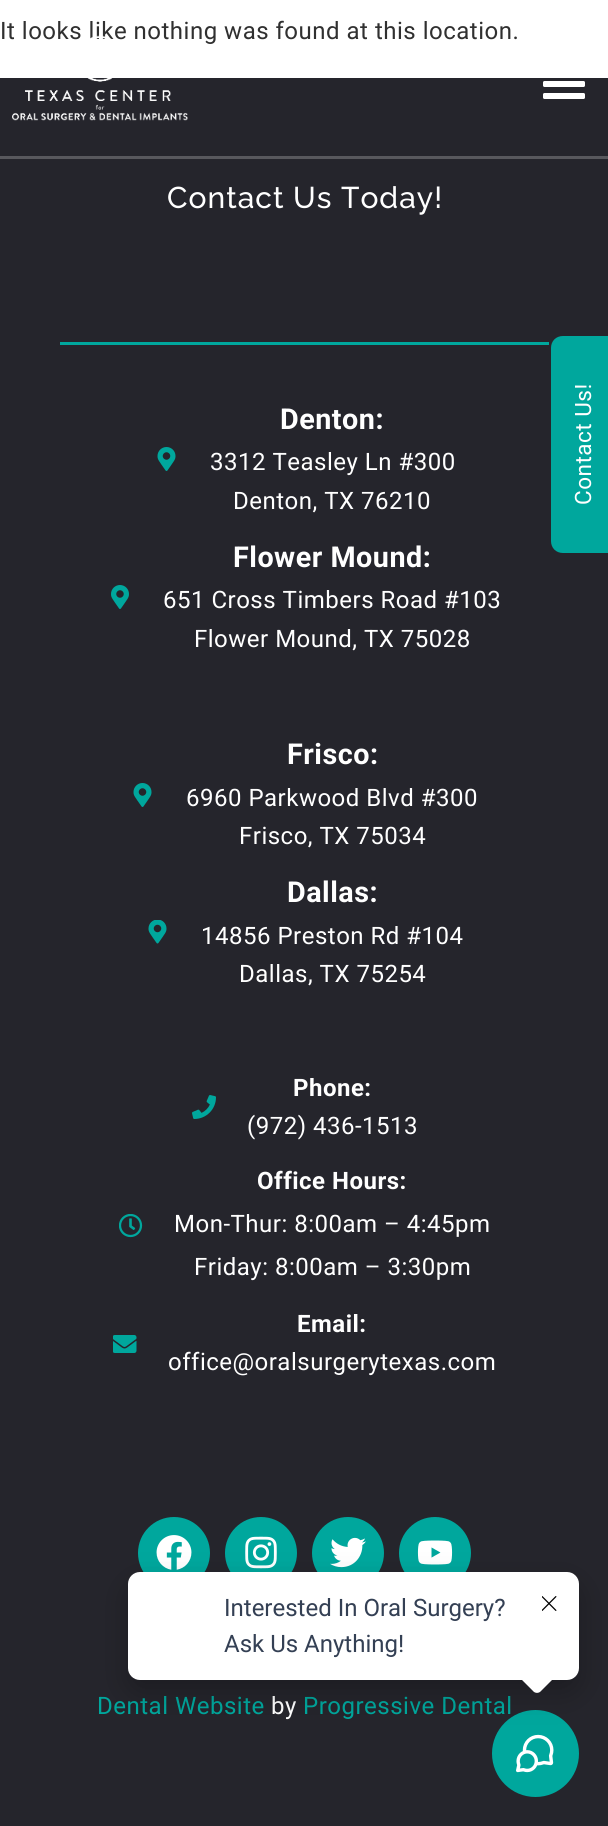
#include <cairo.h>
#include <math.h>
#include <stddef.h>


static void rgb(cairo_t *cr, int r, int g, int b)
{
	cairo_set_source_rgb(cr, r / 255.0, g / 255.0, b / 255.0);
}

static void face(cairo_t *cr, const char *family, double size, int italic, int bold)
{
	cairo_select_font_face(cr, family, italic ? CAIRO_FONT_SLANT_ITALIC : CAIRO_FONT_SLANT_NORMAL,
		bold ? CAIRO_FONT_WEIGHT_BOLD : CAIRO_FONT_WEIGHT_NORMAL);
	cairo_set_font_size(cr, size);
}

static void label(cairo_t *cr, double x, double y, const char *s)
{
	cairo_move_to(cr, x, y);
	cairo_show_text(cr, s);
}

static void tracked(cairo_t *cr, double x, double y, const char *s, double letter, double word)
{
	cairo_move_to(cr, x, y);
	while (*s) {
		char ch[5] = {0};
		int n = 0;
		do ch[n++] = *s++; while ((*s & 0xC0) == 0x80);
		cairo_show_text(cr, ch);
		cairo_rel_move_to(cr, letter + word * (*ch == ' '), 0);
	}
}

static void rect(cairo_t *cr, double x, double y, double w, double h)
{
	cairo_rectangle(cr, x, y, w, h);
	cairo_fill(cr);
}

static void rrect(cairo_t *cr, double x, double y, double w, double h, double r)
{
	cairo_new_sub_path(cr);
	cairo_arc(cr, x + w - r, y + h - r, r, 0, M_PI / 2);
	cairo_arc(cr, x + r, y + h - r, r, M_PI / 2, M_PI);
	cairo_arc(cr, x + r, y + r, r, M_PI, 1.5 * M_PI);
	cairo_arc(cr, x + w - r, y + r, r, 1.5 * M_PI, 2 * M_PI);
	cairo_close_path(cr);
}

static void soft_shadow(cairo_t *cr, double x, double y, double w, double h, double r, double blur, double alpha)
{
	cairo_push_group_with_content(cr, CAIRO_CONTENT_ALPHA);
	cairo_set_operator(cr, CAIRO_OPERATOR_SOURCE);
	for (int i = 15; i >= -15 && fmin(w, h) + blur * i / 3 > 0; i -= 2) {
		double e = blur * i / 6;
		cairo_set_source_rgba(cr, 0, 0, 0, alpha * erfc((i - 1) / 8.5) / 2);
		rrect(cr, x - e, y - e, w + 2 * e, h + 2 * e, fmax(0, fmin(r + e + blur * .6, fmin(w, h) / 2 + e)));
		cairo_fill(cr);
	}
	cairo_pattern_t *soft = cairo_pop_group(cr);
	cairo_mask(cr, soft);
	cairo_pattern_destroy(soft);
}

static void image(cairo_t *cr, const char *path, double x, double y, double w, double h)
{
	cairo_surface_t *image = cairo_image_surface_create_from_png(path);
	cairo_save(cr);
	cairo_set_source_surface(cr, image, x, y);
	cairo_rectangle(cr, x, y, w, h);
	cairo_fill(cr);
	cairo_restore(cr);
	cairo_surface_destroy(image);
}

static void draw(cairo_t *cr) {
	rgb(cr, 255, 255, 255);
	cairo_paint(cr);
	face(cr, "Roboto", 24, 0, 0);
	rgb(cr, 48, 48, 48);
	tracked(cr, 0, 39, "It looks like nothing was found at this location.", 0.5, 0);
	rgb(cr, 37, 37, 44);
	rect(cr, 0, 78, 608, 1748);
	rgb(cr, 88, 88, 93);
	rect(cr, 0, 156, 608, 3);
	image(cr, "image0.png", 12, 35, 176, 86);
	image(cr, "image1.png", 543, 81, 42, 18);
	face(cr, "Raleway Medium", 30, 0, 0);
	rgb(cr, 255, 255, 255);
	tracked(cr, 167, 208, "Contact Us Today!", 1, 0);
	rgb(cr, 0, 167, 157);
	rect(cr, 60, 342, 489, 3);
	image(cr, "image2.png", 157, 447, 19, 24);
	face(cr, "Roboto", 28.75, 0, 1);
	rgb(cr, 255, 255, 255);
	tracked(cr, 280, 429, "Denton:", 0.5, 0);
	face(cr, "Roboto", 24, 0, 0);
	tracked(cr, 210, 470, "3312 Teasley Ln #300", 0.5, 0);
	tracked(cr, 233, 509, "Denton, TX 76210", 0.5, 0);
	image(cr, "image3.png", 111, 585, 18, 24);
	face(cr, "Roboto", 28.75, 0, 1);
	tracked(cr, 233, 567, "Flower Mound:", 0.5, 0);
	face(cr, "Roboto", 24, 0, 0);
	tracked(cr, 163, 608, "651 Cross Timbers Road #103", 0.5, 0);
	tracked(cr, 194, 647, "Flower Mound, TX 75028", 0.5, 0);
	image(cr, "image2.png", 133, 783, 19, 24);
	face(cr, "Roboto", 28.75, 0, 1);
	tracked(cr, 287, 764, "Frisco:", 0.5, 0);
	face(cr, "Roboto", 24, 0, 0);
	tracked(cr, 186, 806, "6960 Parkwood Blvd #300", 0.5, 0);
	tracked(cr, 239, 844, "Frisco, TX 75034", 0.5, 0);
	image(cr, "image4.png", 148, 920, 19, 24);
	face(cr, "Roboto", 28.75, 0, 1);
	tracked(cr, 287, 902, "Dallas:", 0.5, 0);
	face(cr, "Roboto", 24, 0, 0);
	tracked(cr, 201, 944, "14856 Preston Rd #104", 0.5, 0);
	tracked(cr, 239, 982, "Dallas, TX 75254", 0.5, 0);
	image(cr, "image5.png", 192, 1095, 24, 24);
	face(cr, "Roboto", 24, 0, 1);
	tracked(cr, 293, 1096, "Phone:", 0.5, 0);
	face(cr, "Roboto", 24, 0, 0);
	tracked(cr, 247, 1134, "(972) 436-1513", 0.5, 0);
	image(cr, "image6.png", 119, 1214, 24, 24);
	face(cr, "Roboto", 24, 0, 1);
	tracked(cr, 257, 1189, "Office Hours:", 0.5, 0);
	face(cr, "Roboto", 24, 0, 0);
	tracked(cr, 174, 1232, "Mon-Thur: 8:00am – 4:45pm", 0.5, 0);
	tracked(cr, 194, 1275, "Friday: 8:00am – 3:30pm", 0.5, 0);
	image(cr, "image7.png", 113, 1335, 24, 18);
	face(cr, "Roboto", 24, 0, 1);
	tracked(cr, 297, 1332, "Email:", 0.5, 0);
	face(cr, "Roboto", 24, 0, 0);
	tracked(cr, 168, 1370, "office@oralsurgerytexas.com", 0.5, 0);
	rgb(cr, 0, 167, 157);
	cairo_new_path(cr);
	cairo_move_to(cr, 551, 541);
	cairo_line_to(cr, 551, 348);
	cairo_curve_to(cr, 551, 341, 556, 336, 563, 336);
	cairo_line_to(cr, 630, 336);
	cairo_line_to(cr, 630, 553);
	cairo_line_to(cr, 563, 553);
	cairo_curve_to(cr, 556, 553, 551, 548, 551, 541);
	cairo_close_path(cr);
	cairo_fill(cr);
	face(cr, "Roboto", 22.5, 0, 0);
	rgb(cr, 255, 255, 255);
	cairo_save(cr);
	cairo_translate(cr, 591, 505);
	cairo_rotate(cr, -90 * M_PI / 180);
	tracked(cr, 0, 0, "Contact Us!", 0.5, 0);
	cairo_restore(cr);
	rgb(cr, 0, 167, 157);
	cairo_new_path(cr);
	cairo_arc(cr, 174, 1553, 36, 0, 2 * M_PI);
	cairo_fill(cr);
	image(cr, "image8.png", 156, 1535, 36, 35);
	cairo_arc(cr, 261, 1553, 36, 0, 2 * M_PI);
	cairo_fill(cr);
	image(cr, "image9.png", 245, 1536, 32, 33);
	cairo_arc(cr, 348, 1553, 36, 0, 2 * M_PI);
	cairo_fill(cr);
	image(cr, "image10.png", 330, 1537, 36, 31);
	cairo_arc(cr, 435, 1553, 36, 0, 2 * M_PI);
	cairo_fill(cr);
	image(cr, "image11.png", 417, 1540, 36, 25);
	face(cr, "Roboto", 24, 0, 0);
	tracked(cr, 97, 1714, "Dental Website", 0.5, 0);
	rgb(cr, 255, 255, 255);
	tracked(cr, 271, 1714, "by", 0.5, 0);
	rgb(cr, 0, 167, 157);
	tracked(cr, 303, 1714, "Progressive Dental", 0.5, 0);
	cairo_new_path(cr);
	cairo_arc(cr, 535.5, 1753.5, 43.5, 0, 2 * M_PI);
	cairo_fill(cr);
	image(cr, "image13.png", 516, 1734, 38, 39);
	rgb(cr, 0, 0, 0);
	soft_shadow(cr, 128, 1584, 451, 108, 12, 15, 0.24);
	rgb(cr, 255, 255, 255);
	rrect(cr, 128, 1572, 451, 108, 12);
	cairo_fill(cr);
	rgb(cr, 52, 64, 84);
	label(cr, 224, 1616, "Interested In Oral Surgery?");
	label(cr, 224, 1652, "Ask Us Anything!");
	rgb(cr, 255, 255, 255);
	cairo_new_path(cr);
	cairo_move_to(cr, 541, 1657);
	cairo_line_to(cr, 554, 1670);
	cairo_curve_to(cr, 556.5, 1672, 556.5, 1676, 554, 1678);
	cairo_line_to(cr, 541, 1691);
	cairo_curve_to(cr, 539, 1693.5, 535, 1693.5, 533, 1691);
	cairo_line_to(cr, 520, 1678);
	cairo_curve_to(cr, 517.5, 1676, 517.5, 1672, 520, 1670);
	cairo_line_to(cr, 533, 1657);
	cairo_curve_to(cr, 535, 1654.5, 539, 1654.5, 541, 1657);
	cairo_close_path(cr);
	cairo_fill(cr);
	image(cr, "image12.png", 542, 1596, 15, 15);
}

int main(void) {
	cairo_surface_t *surface = cairo_image_surface_create(CAIRO_FORMAT_RGB24, 608, 1826);
	cairo_t *cr = cairo_create(surface);
	cairo_font_options_t *options = cairo_font_options_create();
	cairo_font_options_set_hint_metrics(options, CAIRO_HINT_METRICS_OFF);
	cairo_font_options_set_hint_style(options, CAIRO_HINT_STYLE_NONE);
	cairo_set_font_options(cr, options);
	cairo_set_miter_limit(cr, 4);
	draw(cr);
	cairo_surface_write_to_png(surface, "render.png");
	cairo_font_options_destroy(options);
	cairo_destroy(cr);
	cairo_surface_destroy(surface);
	return 0;
}
